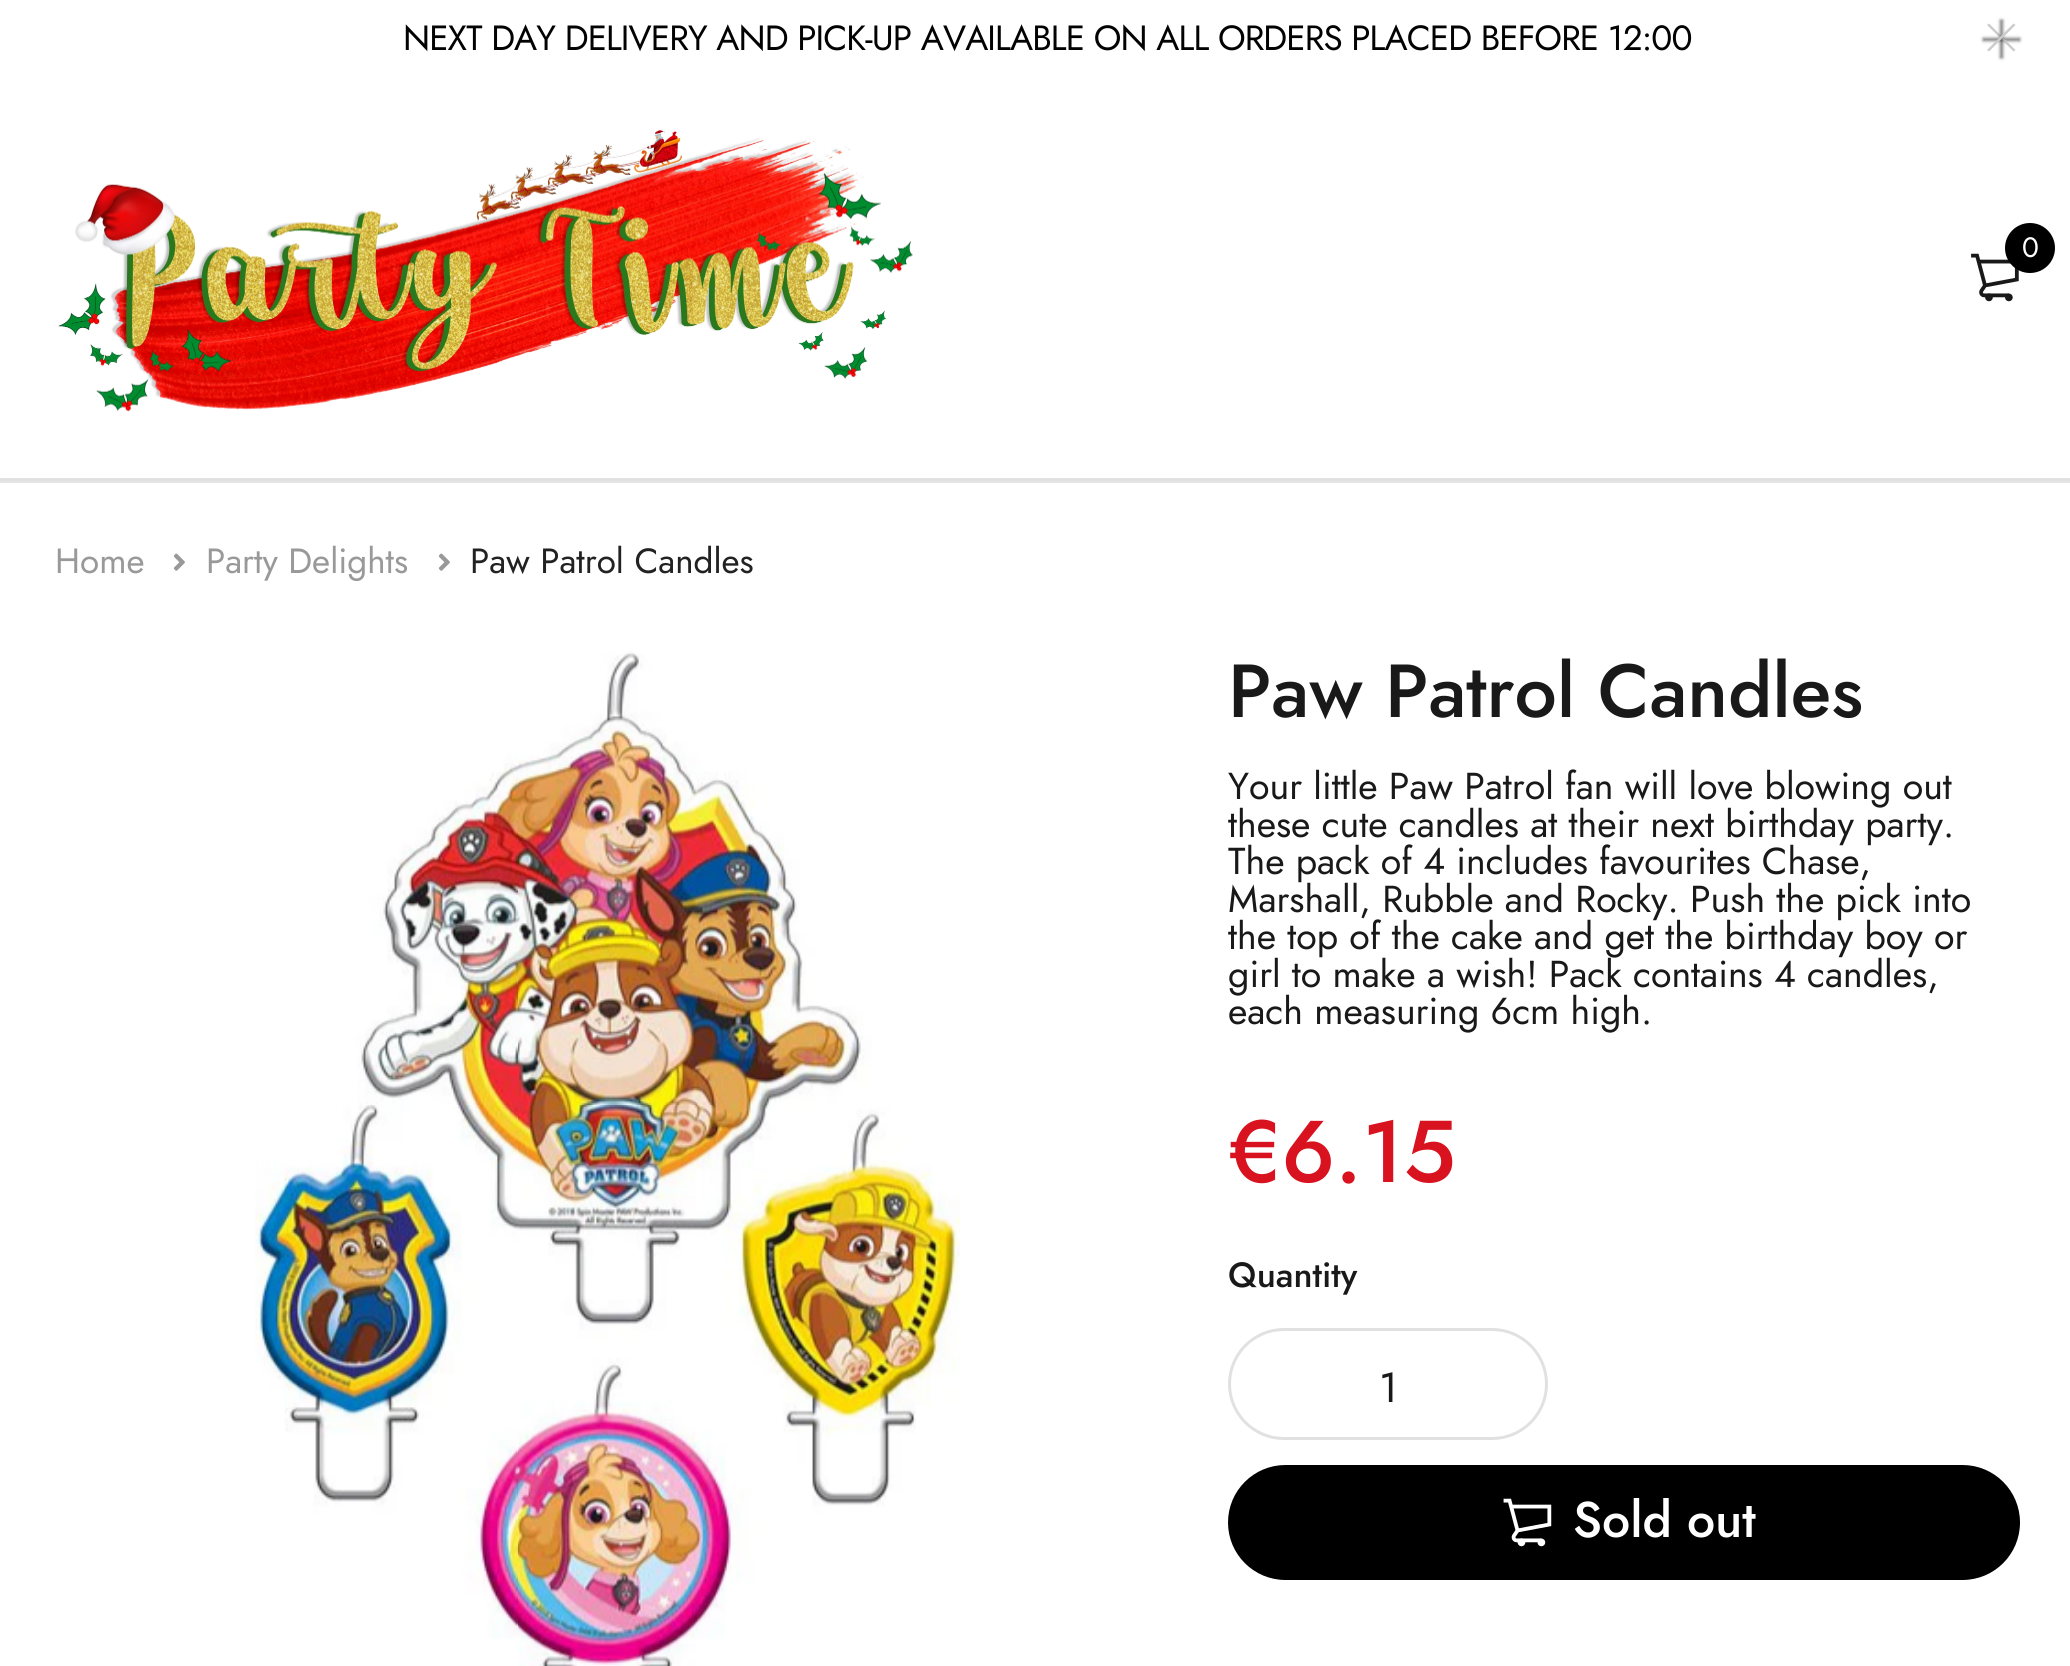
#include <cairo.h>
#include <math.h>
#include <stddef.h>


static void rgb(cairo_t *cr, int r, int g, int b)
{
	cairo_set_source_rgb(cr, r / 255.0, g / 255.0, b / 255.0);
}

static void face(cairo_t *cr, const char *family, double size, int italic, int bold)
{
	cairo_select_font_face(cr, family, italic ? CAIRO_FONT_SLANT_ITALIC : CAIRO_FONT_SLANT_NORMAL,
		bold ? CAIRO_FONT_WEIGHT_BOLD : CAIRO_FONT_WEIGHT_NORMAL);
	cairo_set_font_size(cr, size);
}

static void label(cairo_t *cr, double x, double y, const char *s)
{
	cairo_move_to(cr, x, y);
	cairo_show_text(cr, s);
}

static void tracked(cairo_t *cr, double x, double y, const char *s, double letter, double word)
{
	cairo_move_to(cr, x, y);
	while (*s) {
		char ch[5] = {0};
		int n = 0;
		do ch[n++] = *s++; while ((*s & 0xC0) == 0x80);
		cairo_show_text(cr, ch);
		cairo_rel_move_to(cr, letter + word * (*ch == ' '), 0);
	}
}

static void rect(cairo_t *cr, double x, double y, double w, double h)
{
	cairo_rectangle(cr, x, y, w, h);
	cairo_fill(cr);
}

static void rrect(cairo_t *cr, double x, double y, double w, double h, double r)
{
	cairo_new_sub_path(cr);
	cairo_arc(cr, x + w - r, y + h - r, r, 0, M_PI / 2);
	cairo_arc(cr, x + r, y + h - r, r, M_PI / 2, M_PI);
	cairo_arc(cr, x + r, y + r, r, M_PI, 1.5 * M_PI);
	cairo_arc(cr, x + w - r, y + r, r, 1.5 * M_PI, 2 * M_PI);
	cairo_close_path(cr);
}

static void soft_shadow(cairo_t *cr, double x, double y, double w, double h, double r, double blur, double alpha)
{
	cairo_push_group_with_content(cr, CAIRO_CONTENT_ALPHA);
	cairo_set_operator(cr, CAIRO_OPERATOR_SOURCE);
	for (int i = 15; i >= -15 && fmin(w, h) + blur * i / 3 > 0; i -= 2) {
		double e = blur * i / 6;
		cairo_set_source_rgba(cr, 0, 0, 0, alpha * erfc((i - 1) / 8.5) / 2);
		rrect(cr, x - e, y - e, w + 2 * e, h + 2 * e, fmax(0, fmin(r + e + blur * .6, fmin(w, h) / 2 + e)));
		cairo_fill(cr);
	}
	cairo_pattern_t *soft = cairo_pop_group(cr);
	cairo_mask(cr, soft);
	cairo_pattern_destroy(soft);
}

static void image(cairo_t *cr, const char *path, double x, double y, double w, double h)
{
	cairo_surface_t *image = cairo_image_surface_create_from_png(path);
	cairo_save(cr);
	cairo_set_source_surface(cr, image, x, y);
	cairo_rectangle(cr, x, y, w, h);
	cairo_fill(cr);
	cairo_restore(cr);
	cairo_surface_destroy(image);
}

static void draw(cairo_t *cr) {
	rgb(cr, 255, 255, 255);
	cairo_paint(cr);
	rgb(cr, 229, 229, 229);
	rect(cr, 0, 481, 2070, 2);
	face(cr, "Jost", 35, 0, 0);
	rgb(cr, 2, 2, 2);
	tracked(cr, 403, 50, "NEXT DAY DELIVERY AND PICK-UP AVAILABLE ON ALL ORDERS PLACED BEFORE 12:00", -0.88, 0);
	rgb(cr, 0, 0, 0);
	soft_shadow(cr, 1983, 38, 37, 3, 0, 1.5, 0.5);
	rgb(cr, 204, 204, 204);
	cairo_new_path(cr);
	cairo_move_to(cr, 1989, 23.5);
	cairo_line_to(cr, 2015.5, 50);
	cairo_line_to(cr, 2013.5, 51.5);
	cairo_line_to(cr, 1987, 25);
	cairo_close_path(cr);
	cairo_fill(cr);
	rgb(cr, 0, 0, 0);
	soft_shadow(cr, 2000, 20, 3, 38, 0, 1.5, 0.5);
	rgb(cr, 204, 204, 204);
	cairo_new_path(cr);
	cairo_move_to(cr, 2013.5, 23.5);
	cairo_line_to(cr, 2015.5, 25);
	cairo_line_to(cr, 1989, 51.5);
	cairo_line_to(cr, 1987, 50);
	cairo_close_path(cr);
	cairo_fill(cr);
	image(cr, "image0.png", 58, 130, 855, 282);
	image(cr, "image1.png", 1971, 253, 48, 49);
	rgb(cr, 0, 0, 0);
	cairo_arc(cr, 2030, 248, 25, 0, 2 * M_PI);
	cairo_fill(cr);
	face(cr, "Jost", 28, 0, 0);
	rgb(cr, 255, 255, 255);
	tracked(cr, 2022, 257, "0", -0.88, 0);
	rgb(cr, 225, 225, 225);
	rect(cr, 0, 478, 2070, 3);
	face(cr, "Jost", 35, 0, 0);
	rgb(cr, 153, 153, 153);
	label(cr, 55, 573, "Home");
	image(cr, "image2.png", 173, 553, 12, 18);
	label(cr, 206, 573, "Party Delights");
	image(cr, "image2.png", 438, 553, 12, 18);
	rgb(cr, 34, 34, 34);
	label(cr, 470, 573, "Paw Patrol Candles");
	image(cr, "image3.png", 255, 651, 706, 1015);
	face(cr, "Jost Medium", 75, 0, 0);
	rgb(cr, 25, 25, 25);
	label(cr, 1228, 717, "Paw Patrol Candles");
	face(cr, "Jost", 37.5, 0, 0);
	label(cr, 1228, 799, "Your little Paw Patrol fan will love blowing out");
	label(cr, 1228, 837, "these cute candles at their next birthday party.");
	label(cr, 1228, 874, "The pack of 4 includes favourites Chase,");
	label(cr, 1228, 912, "Marshall, Rubble and Rocky. Push the pick into");
	label(cr, 1228, 949, "the top of the cake and get the birthday boy or");
	label(cr, 1228, 987, "girl to make a wish! Pack contains 4 candles,");
	label(cr, 1228, 1024, "each measuring 6cm high.");
	face(cr, "Jost Medium", 87.5, 0, 0);
	rgb(cr, 217, 18, 31);
	label(cr, 1228, 1182, "€6.15");
	face(cr, "Jost Medium", 35, 0, 0);
	rgb(cr, 25, 25, 25);
	label(cr, 1228, 1287, "Quantity");
	rrect(cr, 1229.5, 1329.5, 317, 109, 54.5);
	rgb(cr, 225, 225, 225);
	cairo_set_line_width(cr, 3);
	cairo_stroke(cr);
	face(cr, "Jost", 42, 0, 0);
	rgb(cr, 25, 25, 25);
	label(cr, 1379, 1402, "1");
	rgb(cr, 0, 0, 0);
	rrect(cr, 1228, 1465, 792, 115, 57.5);
	cairo_fill(cr);
	image(cr, "image4.png", 1503, 1498, 49, 49);
	face(cr, "Jost Medium", 50, 0, 0);
	rgb(cr, 255, 255, 255);
	label(cr, 1573, 1537, "Sold out");
}

int main(void) {
	cairo_surface_t *surface = cairo_image_surface_create(CAIRO_FORMAT_RGB24, 2070, 1666);
	cairo_t *cr = cairo_create(surface);
	cairo_font_options_t *options = cairo_font_options_create();
	cairo_font_options_set_hint_metrics(options, CAIRO_HINT_METRICS_OFF);
	cairo_font_options_set_hint_style(options, CAIRO_HINT_STYLE_NONE);
	cairo_set_font_options(cr, options);
	cairo_set_miter_limit(cr, 4);
	draw(cr);
	cairo_surface_write_to_png(surface, "render.png");
	cairo_font_options_destroy(options);
	cairo_destroy(cr);
	cairo_surface_destroy(surface);
	return 0;
}
